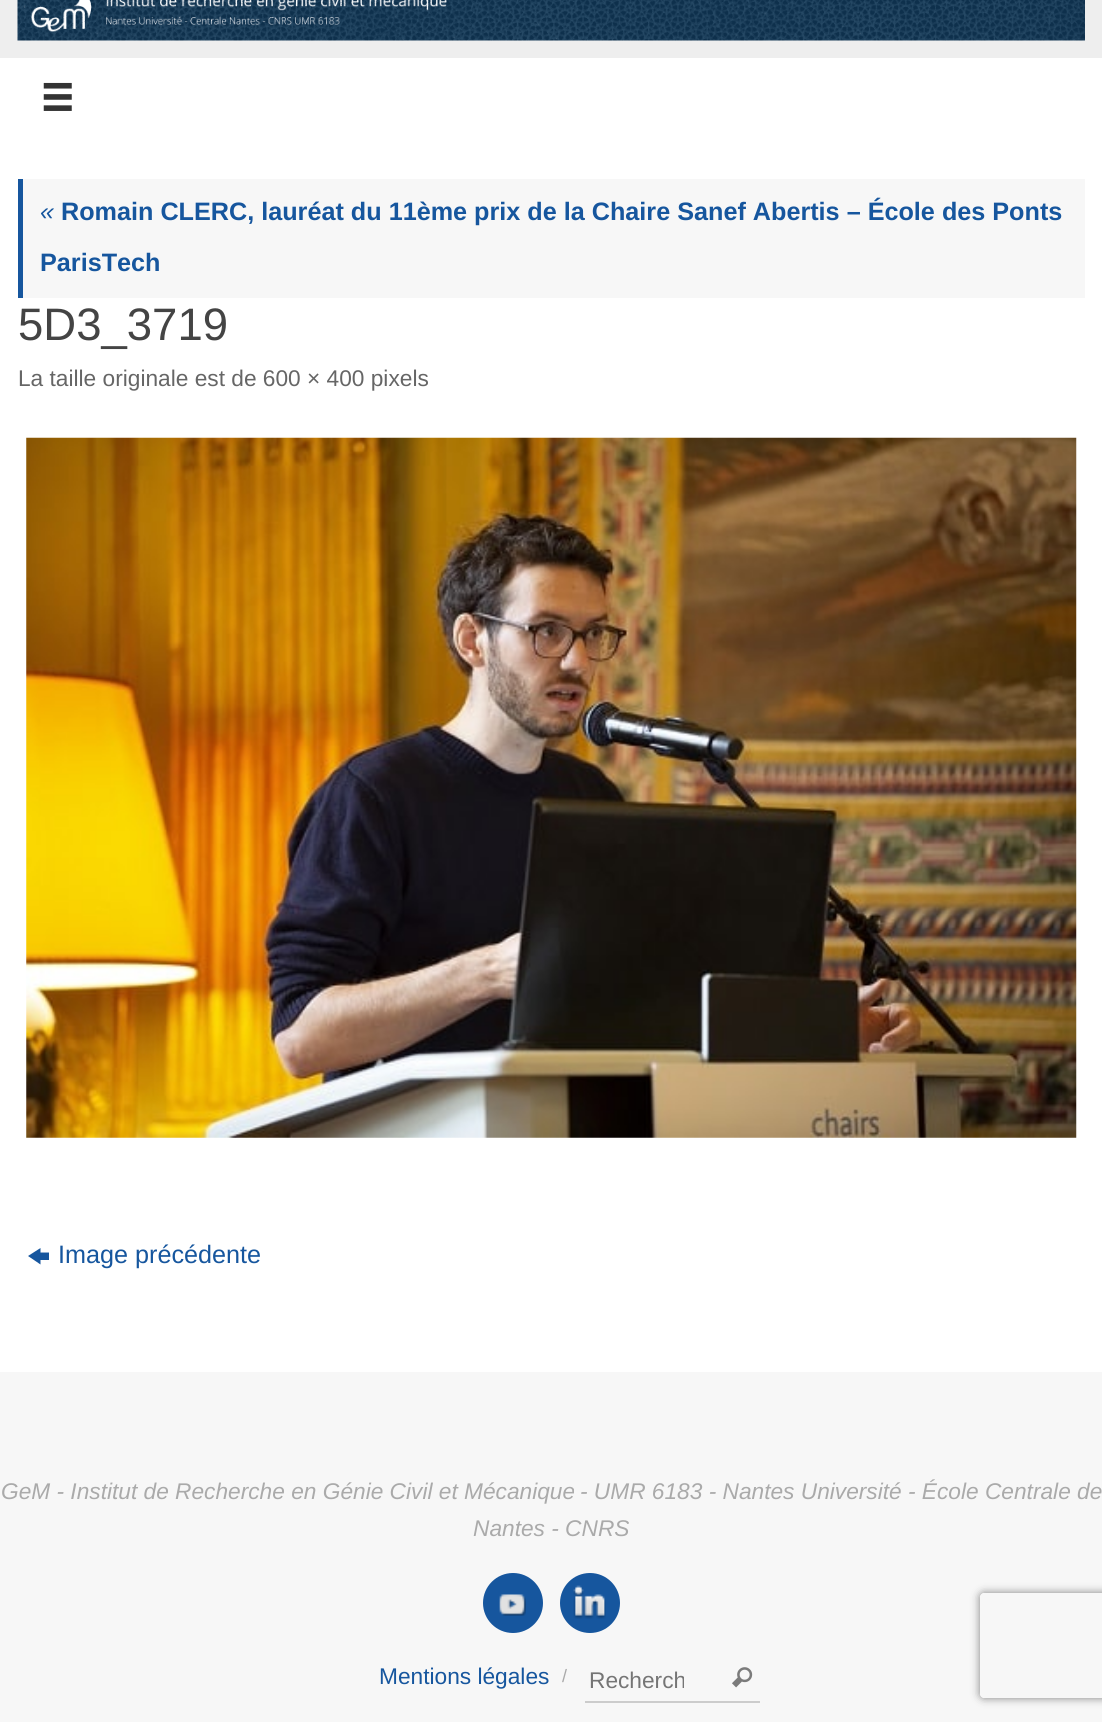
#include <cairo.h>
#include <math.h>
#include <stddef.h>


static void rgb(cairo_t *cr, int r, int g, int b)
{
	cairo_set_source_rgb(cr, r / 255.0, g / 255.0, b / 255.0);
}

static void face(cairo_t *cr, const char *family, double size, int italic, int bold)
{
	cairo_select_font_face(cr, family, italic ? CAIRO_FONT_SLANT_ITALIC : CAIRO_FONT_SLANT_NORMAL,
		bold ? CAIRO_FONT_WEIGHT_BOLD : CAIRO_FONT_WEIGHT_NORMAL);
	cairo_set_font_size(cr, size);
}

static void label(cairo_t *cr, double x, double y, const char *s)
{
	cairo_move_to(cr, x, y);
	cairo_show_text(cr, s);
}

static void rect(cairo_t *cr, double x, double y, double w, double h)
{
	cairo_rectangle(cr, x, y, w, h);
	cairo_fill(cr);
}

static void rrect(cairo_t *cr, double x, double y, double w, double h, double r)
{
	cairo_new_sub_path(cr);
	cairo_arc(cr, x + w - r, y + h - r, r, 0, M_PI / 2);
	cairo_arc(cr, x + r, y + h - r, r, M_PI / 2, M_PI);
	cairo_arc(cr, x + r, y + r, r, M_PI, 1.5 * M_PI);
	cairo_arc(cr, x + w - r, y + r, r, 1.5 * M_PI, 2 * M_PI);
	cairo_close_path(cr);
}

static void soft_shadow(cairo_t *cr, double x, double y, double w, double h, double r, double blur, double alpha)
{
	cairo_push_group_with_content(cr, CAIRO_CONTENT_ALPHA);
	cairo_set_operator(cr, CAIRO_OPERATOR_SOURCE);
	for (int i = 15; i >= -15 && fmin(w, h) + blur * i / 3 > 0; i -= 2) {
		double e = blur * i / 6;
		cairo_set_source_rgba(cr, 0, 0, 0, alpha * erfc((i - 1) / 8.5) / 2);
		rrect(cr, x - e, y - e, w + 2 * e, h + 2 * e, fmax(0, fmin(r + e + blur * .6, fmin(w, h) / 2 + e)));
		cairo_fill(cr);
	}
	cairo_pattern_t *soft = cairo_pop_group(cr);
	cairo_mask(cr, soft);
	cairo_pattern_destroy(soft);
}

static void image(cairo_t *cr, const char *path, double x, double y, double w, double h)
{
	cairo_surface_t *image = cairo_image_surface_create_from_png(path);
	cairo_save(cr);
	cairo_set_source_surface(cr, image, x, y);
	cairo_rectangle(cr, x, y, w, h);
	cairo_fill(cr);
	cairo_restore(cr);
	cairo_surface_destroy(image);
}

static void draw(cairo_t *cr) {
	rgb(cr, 238, 238, 238);
	cairo_paint(cr);
	image(cr, "image0.png", 17, 0, 1068, 41);
	rgb(cr, 255, 255, 255);
	rect(cr, 0, 58, 1102, 1314);
	image(cr, "image1.png", 43, 82, 29, 29);
	rgb(cr, 247, 247, 247);
	rect(cr, 23, 179, 1062, 119);
	rgb(cr, 22, 86, 158);
	rect(cr, 18, 179, 5, 119);
	face(cr, "Liberation Sans", 25.2, 1, 0);
	label(cr, 40, 220, "«");
	face(cr, "Liberation Sans", 25.2, 0, 1);
	label(cr, 61, 220, "Romain CLERC, lauréat du 11ème prix de la Chaire Sanef Abertis – École des Ponts");
	label(cr, 40, 271, "ParisTech");
	face(cr, "Liberation Sans", 45.5, 0, 0);
	rgb(cr, 68, 68, 68);
	label(cr, 18, 340, "5D3_3719");
	face(cr, "Liberation Sans", 22.7, 0, 0);
	rgb(cr, 102, 102, 102);
	label(cr, 18, 386, "La taille originale est de 600 × 400 pixels");
	image(cr, "image2.png", 26, 437, 1051, 701);
	rgb(cr, 22, 86, 158);
	cairo_new_path(cr);
	cairo_move_to(cr, 28, 1256);
	cairo_line_to(cr, 40.5, 1248);
	cairo_line_to(cr, 40.5, 1252.5);
	cairo_line_to(cr, 49, 1252.5);
	cairo_line_to(cr, 49, 1260);
	cairo_line_to(cr, 40.5, 1260);
	cairo_line_to(cr, 40.5, 1264.5);
	cairo_close_path(cr);
	cairo_fill(cr);
	face(cr, "Liberation Sans", 25.2, 0, 0);
	label(cr, 58, 1263, "Image précédente");
	rgb(cr, 247, 247, 247);
	rect(cr, 0, 1372, 1102, 350);
	face(cr, "Liberation Sans", 22.7, 1, 0);
	rgb(cr, 170, 170, 170);
	label(cr, 1, 1499, "GeM - Institut de Recherche en Génie Civil et Mécanique");
	label(cr, 580, 1499, "- UMR 6183 - Nantes Université - École Centrale de");
	label(cr, 473, 1536, "Nantes - CNRS");
	rgb(cr, 22, 86, 158);
	cairo_new_path(cr);
	cairo_arc(cr, 513, 1603, 30, 0, 2 * M_PI);
	cairo_fill(cr);
	image(cr, "image3.png", 499, 1594, 27, 22);
	cairo_arc(cr, 590, 1603, 30, 0, 2 * M_PI);
	cairo_fill(cr);
	image(cr, "image4.png", 573, 1585, 33, 34);
	face(cr, "Liberation Sans", 22.7, 0, 0);
	label(cr, 379, 1684, "Mentions légales");
	face(cr, "Liberation Sans", 18, 0, 0);
	rgb(cr, 170, 170, 170);
	label(cr, 562, 1682, "/");
	rgb(cr, 204, 204, 204);
	rect(cr, 585, 1701, 175, 2);
	cairo_save(cr);
	cairo_rectangle(cr, 588, 1668, 96, 26);
	cairo_clip(cr);
	face(cr, "Liberation Sans", 22.7, 0, 0);
	rgb(cr, 117, 117, 117);
	label(cr, 589, 1688, "Recherch");
	cairo_restore(cr);
	image(cr, "image5.png", 732, 1667, 21, 21);
	cairo_save(cr);
	cairo_set_fill_rule(cr, CAIRO_FILL_RULE_EVEN_ODD);
	cairo_new_path(cr);
	cairo_move_to(cr, 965, 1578);
	cairo_line_to(cr, 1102, 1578);
	cairo_line_to(cr, 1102, 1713);
	cairo_line_to(cr, 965, 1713);
	cairo_close_path(cr);
	cairo_move_to(cr, 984, 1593);
	cairo_line_to(cr, 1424, 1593);
	cairo_curve_to(cr, 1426, 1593, 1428, 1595, 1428, 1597);
	cairo_line_to(cr, 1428, 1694);
	cairo_curve_to(cr, 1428, 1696, 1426, 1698, 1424, 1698);
	cairo_line_to(cr, 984, 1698);
	cairo_curve_to(cr, 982, 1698, 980, 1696, 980, 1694);
	cairo_line_to(cr, 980, 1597);
	cairo_curve_to(cr, 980, 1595, 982, 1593, 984, 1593);
	cairo_close_path(cr);
	cairo_clip(cr);
	rgb(cr, 128, 128, 128);
	soft_shadow(cr, 980, 1593, 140, 105, 4, 4.5, 1);
	cairo_restore(cr);
}

int main(void) {
	cairo_surface_t *surface = cairo_image_surface_create(CAIRO_FORMAT_RGB24, 1102, 1722);
	cairo_t *cr = cairo_create(surface);
	cairo_font_options_t *options = cairo_font_options_create();
	cairo_font_options_set_hint_metrics(options, CAIRO_HINT_METRICS_OFF);
	cairo_font_options_set_hint_style(options, CAIRO_HINT_STYLE_NONE);
	cairo_set_font_options(cr, options);
	cairo_set_miter_limit(cr, 4);
	draw(cr);
	cairo_surface_write_to_png(surface, "render.png");
	cairo_font_options_destroy(options);
	cairo_destroy(cr);
	cairo_surface_destroy(surface);
	return 0;
}
